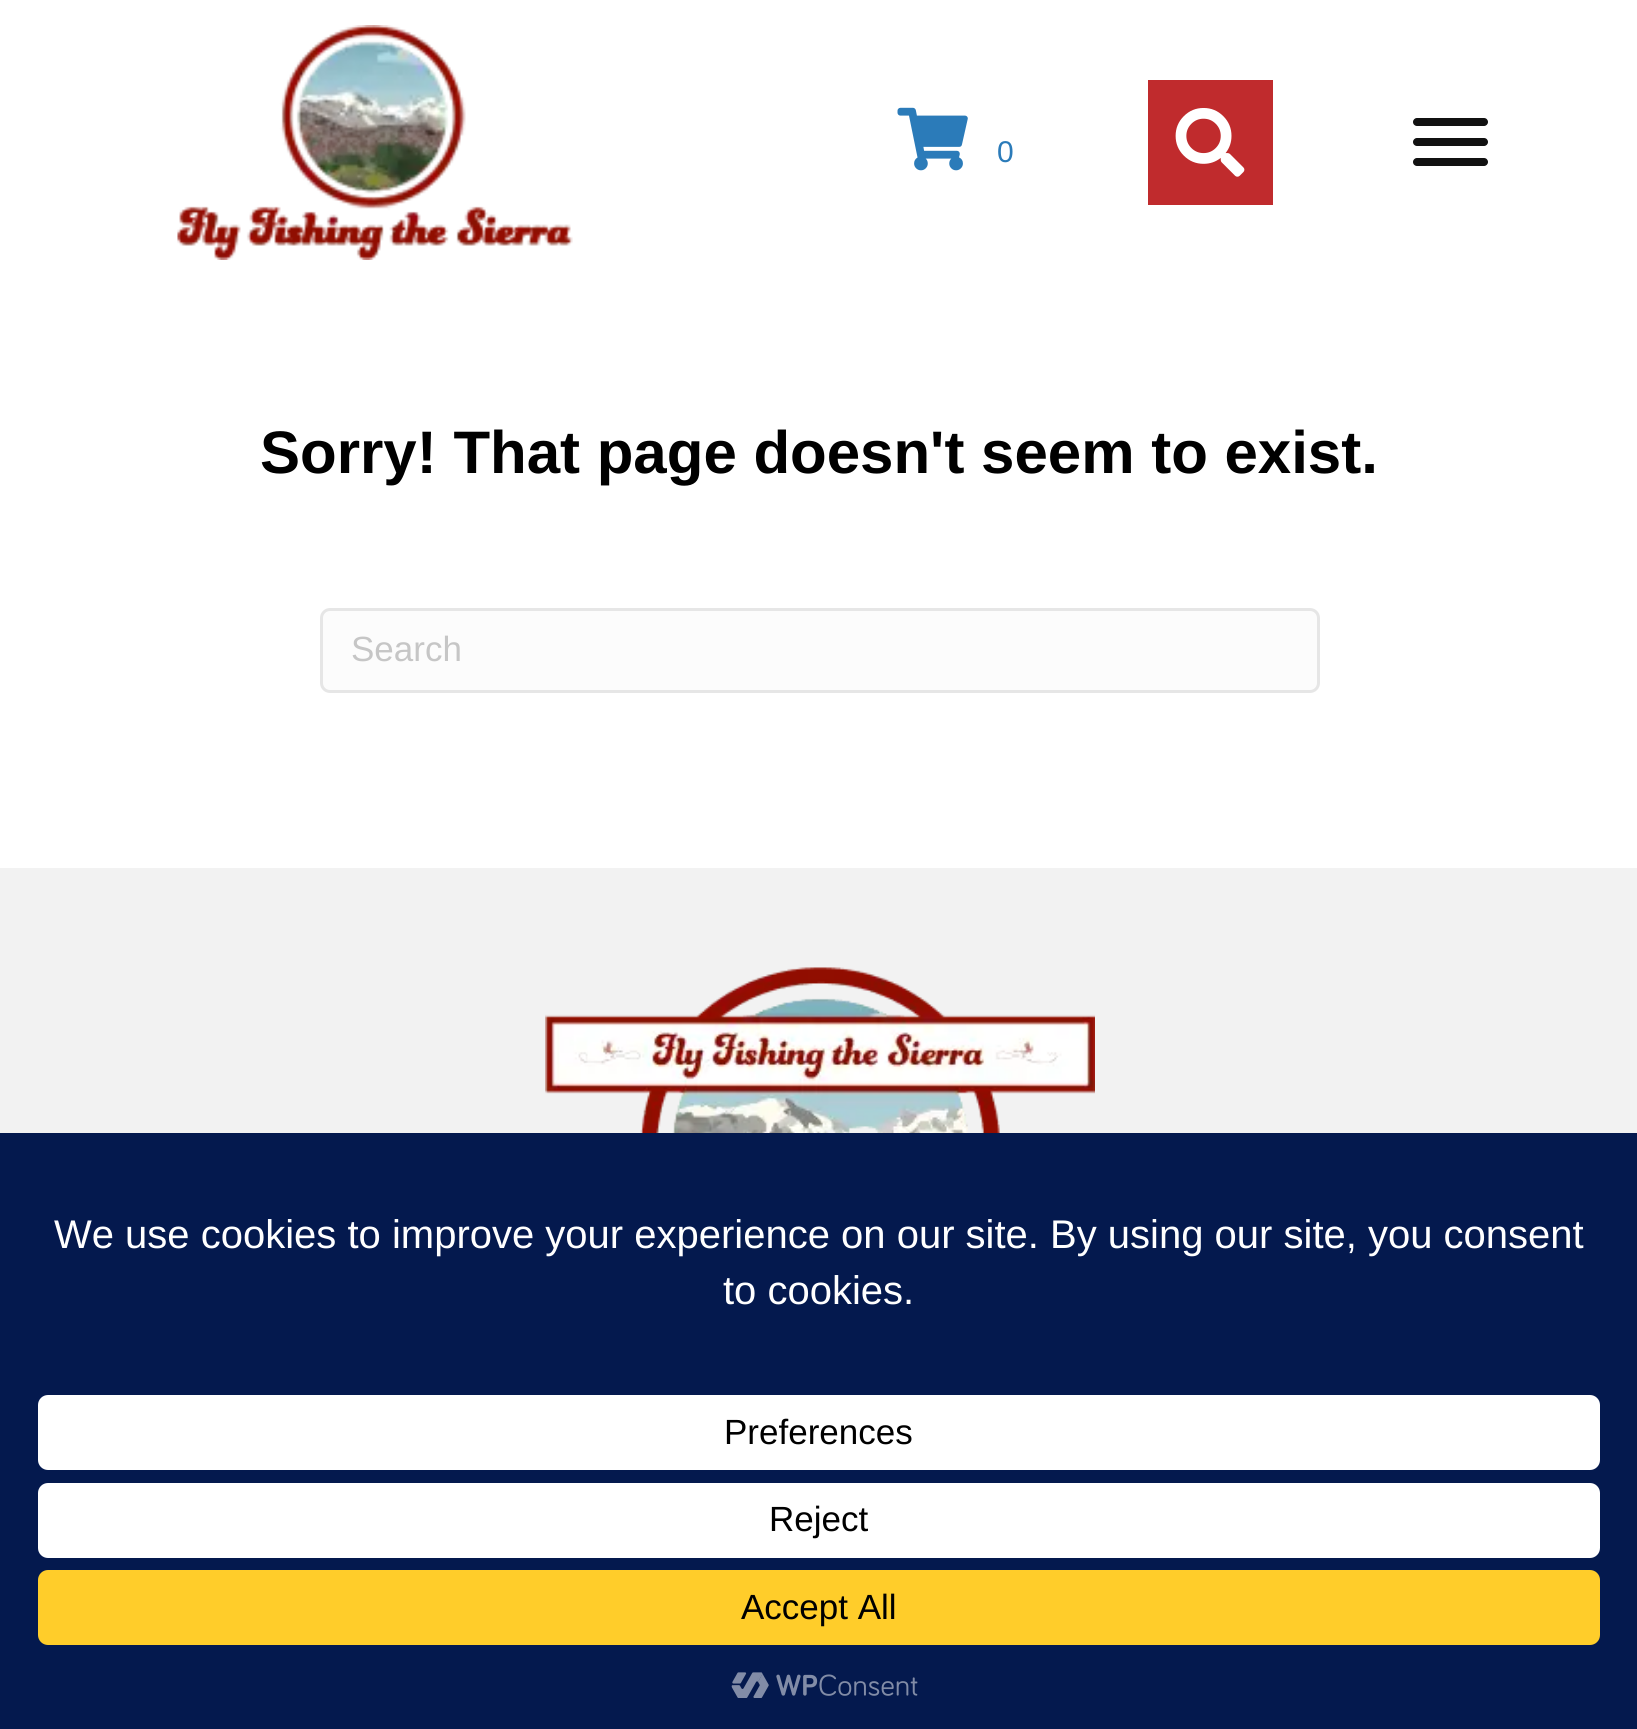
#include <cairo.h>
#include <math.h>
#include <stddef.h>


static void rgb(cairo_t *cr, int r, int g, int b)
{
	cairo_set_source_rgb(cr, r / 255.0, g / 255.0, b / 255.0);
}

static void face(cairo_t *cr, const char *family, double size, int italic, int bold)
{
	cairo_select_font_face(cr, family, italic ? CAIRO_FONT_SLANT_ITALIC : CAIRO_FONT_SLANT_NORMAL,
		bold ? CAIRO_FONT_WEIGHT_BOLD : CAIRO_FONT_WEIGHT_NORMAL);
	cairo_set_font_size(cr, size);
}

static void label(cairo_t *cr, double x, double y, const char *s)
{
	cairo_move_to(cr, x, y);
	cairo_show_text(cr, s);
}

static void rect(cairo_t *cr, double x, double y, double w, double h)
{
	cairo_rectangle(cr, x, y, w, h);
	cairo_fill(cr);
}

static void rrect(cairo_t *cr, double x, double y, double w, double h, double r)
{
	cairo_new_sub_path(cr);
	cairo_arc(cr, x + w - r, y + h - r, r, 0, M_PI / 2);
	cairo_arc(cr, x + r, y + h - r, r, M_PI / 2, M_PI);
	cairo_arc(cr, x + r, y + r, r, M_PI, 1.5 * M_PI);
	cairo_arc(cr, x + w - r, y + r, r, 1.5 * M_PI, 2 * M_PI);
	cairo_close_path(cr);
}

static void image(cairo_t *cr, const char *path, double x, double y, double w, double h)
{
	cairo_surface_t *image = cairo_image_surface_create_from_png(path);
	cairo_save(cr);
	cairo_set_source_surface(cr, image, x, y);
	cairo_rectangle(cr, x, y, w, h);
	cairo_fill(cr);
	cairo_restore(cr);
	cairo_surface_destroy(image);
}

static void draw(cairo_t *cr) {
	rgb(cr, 242, 242, 242);
	cairo_paint(cr);
	rgb(cr, 255, 255, 255);
	rect(cr, 0, 0, 1637, 868);
	image(cr, "image0.png", 177, 25, 396, 235);
	image(cr, "image1.png", 897, 107, 71, 64);
	face(cr, "Liberation Sans", 30, 0, 0);
	rgb(cr, 43, 123, 185);
	label(cr, 997, 162, "0");
	rgb(cr, 192, 43, 45);
	rect(cr, 1148, 80, 125, 125);
	image(cr, "image2.png", 1175, 108, 70, 69);
	rgb(cr, 17, 17, 17);
	rrect(cr, 1413, 138, 75, 8, 4);
	cairo_fill(cr);
	rrect(cr, 1413, 118, 75, 8, 4);
	cairo_fill(cr);
	rrect(cr, 1413, 158, 75, 8, 4);
	cairo_fill(cr);
	face(cr, "Liberation Sans", 60, 0, 1);
	rgb(cr, 0, 0, 0);
	label(cr, 260, 473, "Sorry! That page doesn't seem to exist.");
	rgb(cr, 252, 252, 252);
	rrect(cr, 321.5, 609.5, 997, 82, 8.5);
	cairo_fill_preserve(cr);
	rgb(cr, 230, 230, 230);
	cairo_set_line_width(cr, 3);
	cairo_stroke(cr);
	face(cr, "Liberation Sans", 35, 0, 0);
	rgb(cr, 198, 198, 198);
	label(cr, 351, 661, "Search");
	image(cr, "image3.png", 545, 967, 550, 166);
	rgb(cr, 4, 25, 78);
	rect(cr, 0, 1133, 1637, 596);
	face(cr, "Liberation Sans", 40, 0, 0);
	rgb(cr, 255, 255, 255);
	label(cr, 54, 1248, "We use cookies to improve your experience on our site. By using our site, you consent");
	label(cr, 723, 1304, "to cookies.");
	rrect(cr, 38, 1395, 1562, 75, 10);
	cairo_fill(cr);
	face(cr, "Liberation Sans", 35, 0, 0);
	rgb(cr, 0, 0, 0);
	label(cr, 724, 1444, "Preferences");
	rgb(cr, 255, 255, 255);
	rrect(cr, 38, 1483, 1562, 75, 10);
	cairo_fill(cr);
	rgb(cr, 0, 0, 0);
	label(cr, 769, 1531, "Reject");
	rgb(cr, 255, 205, 42);
	rrect(cr, 38, 1570, 1562, 75, 10);
	cairo_fill(cr);
	rgb(cr, 0, 0, 0);
	label(cr, 741, 1619, "Accept All");
	image(cr, "image4.png", 731, 1672, 187, 26);
}

int main(void) {
	cairo_surface_t *surface = cairo_image_surface_create(CAIRO_FORMAT_RGB24, 1637, 1729);
	cairo_t *cr = cairo_create(surface);
	cairo_font_options_t *options = cairo_font_options_create();
	cairo_font_options_set_hint_metrics(options, CAIRO_HINT_METRICS_OFF);
	cairo_font_options_set_hint_style(options, CAIRO_HINT_STYLE_NONE);
	cairo_set_font_options(cr, options);
	cairo_set_miter_limit(cr, 4);
	draw(cr);
	cairo_surface_write_to_png(surface, "render.png");
	cairo_font_options_destroy(options);
	cairo_destroy(cr);
	cairo_surface_destroy(surface);
	return 0;
}
